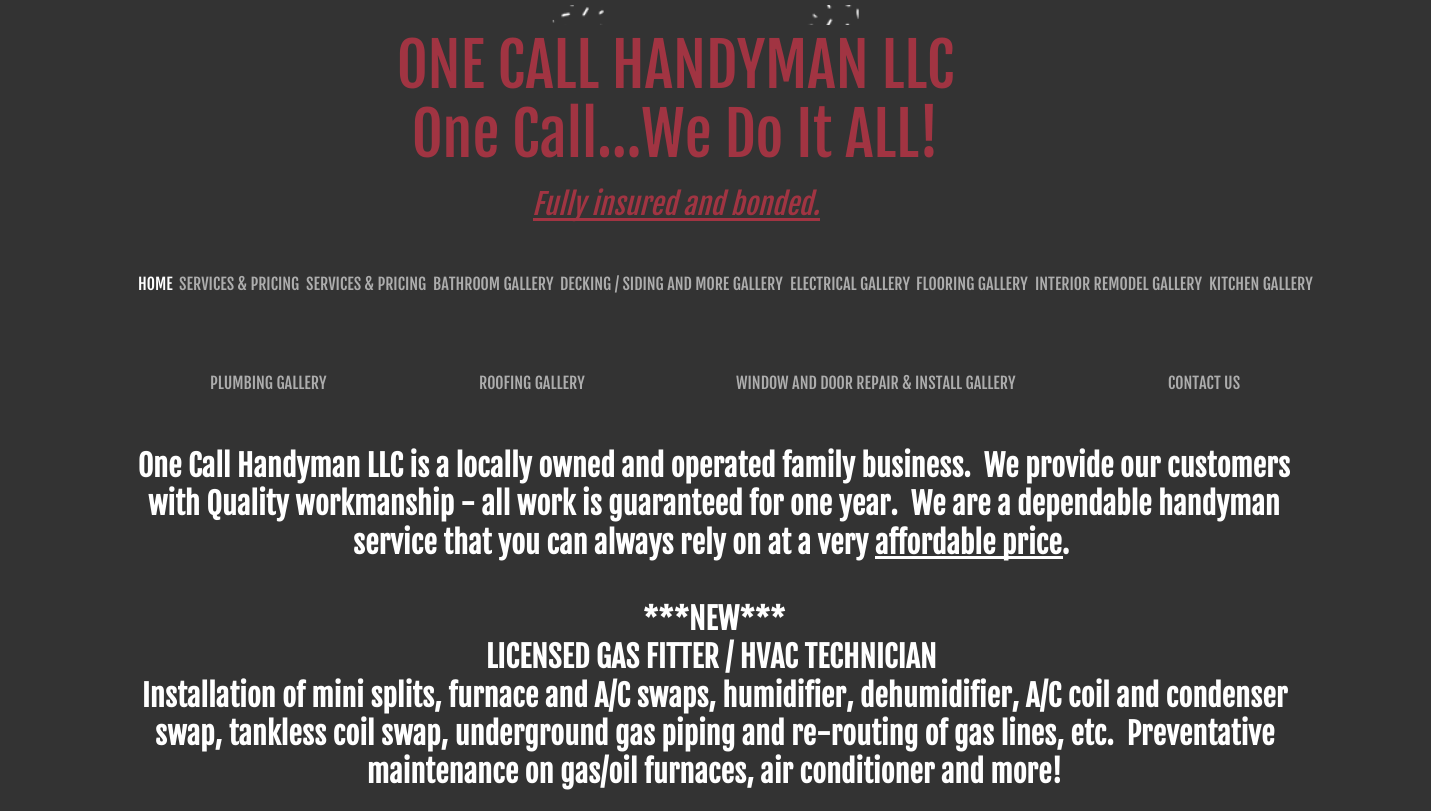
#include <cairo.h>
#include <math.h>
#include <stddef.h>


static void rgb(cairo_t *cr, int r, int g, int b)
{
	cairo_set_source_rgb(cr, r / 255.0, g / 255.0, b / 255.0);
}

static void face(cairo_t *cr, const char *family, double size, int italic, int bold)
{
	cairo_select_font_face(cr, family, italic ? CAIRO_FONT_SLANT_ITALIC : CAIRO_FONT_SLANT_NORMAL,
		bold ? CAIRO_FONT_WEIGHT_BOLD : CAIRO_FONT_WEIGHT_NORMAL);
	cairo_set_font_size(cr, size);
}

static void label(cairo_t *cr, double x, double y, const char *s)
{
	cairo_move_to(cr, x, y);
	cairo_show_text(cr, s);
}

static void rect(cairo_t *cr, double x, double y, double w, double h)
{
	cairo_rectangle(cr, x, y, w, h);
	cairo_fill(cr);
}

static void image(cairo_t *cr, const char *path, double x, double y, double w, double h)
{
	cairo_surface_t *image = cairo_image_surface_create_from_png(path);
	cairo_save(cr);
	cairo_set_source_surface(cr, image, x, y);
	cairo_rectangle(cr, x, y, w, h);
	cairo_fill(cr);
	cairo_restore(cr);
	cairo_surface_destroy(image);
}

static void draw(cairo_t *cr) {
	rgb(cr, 51, 51, 51);
	cairo_paint(cr);
	image(cr, "image0.png", 552, 5, 307, 20);
	face(cr, "Fjalla One", 60, 0, 0);
	rgb(cr, 161, 52, 66);
	label(cr, 397, 88, "ONE CALL HANDYMAN LLC");
	label(cr, 412, 157, "One Call...We Do It ALL!");
	rect(cr, 533, 218, 287, 3);
	face(cr, "Fjalla One", 28.75, 1, 0);
	label(cr, 532, 215, "Fully insured and bonded.");
	face(cr, "Fjalla One", 16, 0, 0);
	rgb(cr, 255, 255, 255);
	label(cr, 138, 290, "HOME");
	rgb(cr, 173, 173, 173);
	label(cr, 179, 290, "SERVICES & PRICING");
	label(cr, 306, 290, "SERVICES & PRICING");
	label(cr, 433, 290, "BATHROOM GALLERY");
	label(cr, 560, 290, "DECKING / SIDING AND MORE GALLERY");
	label(cr, 790, 290, "ELECTRICAL GALLERY");
	label(cr, 916, 290, "FLOORING GALLERY");
	label(cr, 1035, 290, "INTERIOR REMODEL GALLERY");
	label(cr, 1209, 290, "KITCHEN GALLERY");
	label(cr, 210, 389, "PLUMBING GALLERY");
	label(cr, 479, 389, "ROOFING GALLERY");
	label(cr, 736, 389, "WINDOW AND DOOR REPAIR & INSTALL GALLERY");
	label(cr, 1168, 389, "CONTACT US");
	face(cr, "Fjalla One", 30, 0, 1);
	rgb(cr, 255, 255, 255);
	label(cr, 138, 477, "One Call Handyman LLC is a locally owned and operated family business.  We provide our customers");
	label(cr, 148, 515, "with Quality workmanship - all work is guaranteed for one year.  We are a dependable handyman");
	label(cr, 353, 554, "service that you can always rely on at a very");
	rect(cr, 875, 556, 188, 3);
	label(cr, 875, 554, "affordable price.");
	label(cr, 643, 630, "***NEW***");
	label(cr, 486, 668, "LICENSED GAS FITTER / HVAC TECHNICIAN");
	label(cr, 142, 707, "Installation of mini splits, furnace and A/C swaps, humidifier, dehumidifier, A/C coil and condenser");
	label(cr, 155, 745, "swap, tankless coil swap, underground gas piping and re-routing of gas lines, etc.  Preventative");
	label(cr, 367, 783, "maintenance on gas/oil furnaces, air conditioner and more!");
}

int main(void) {
	cairo_surface_t *surface = cairo_image_surface_create(CAIRO_FORMAT_RGB24, 1431, 811);
	cairo_t *cr = cairo_create(surface);
	cairo_font_options_t *options = cairo_font_options_create();
	cairo_font_options_set_hint_metrics(options, CAIRO_HINT_METRICS_OFF);
	cairo_font_options_set_hint_style(options, CAIRO_HINT_STYLE_NONE);
	cairo_set_font_options(cr, options);
	cairo_set_miter_limit(cr, 4);
	draw(cr);
	cairo_surface_write_to_png(surface, "render.png");
	cairo_font_options_destroy(options);
	cairo_destroy(cr);
	cairo_surface_destroy(surface);
	return 0;
}
